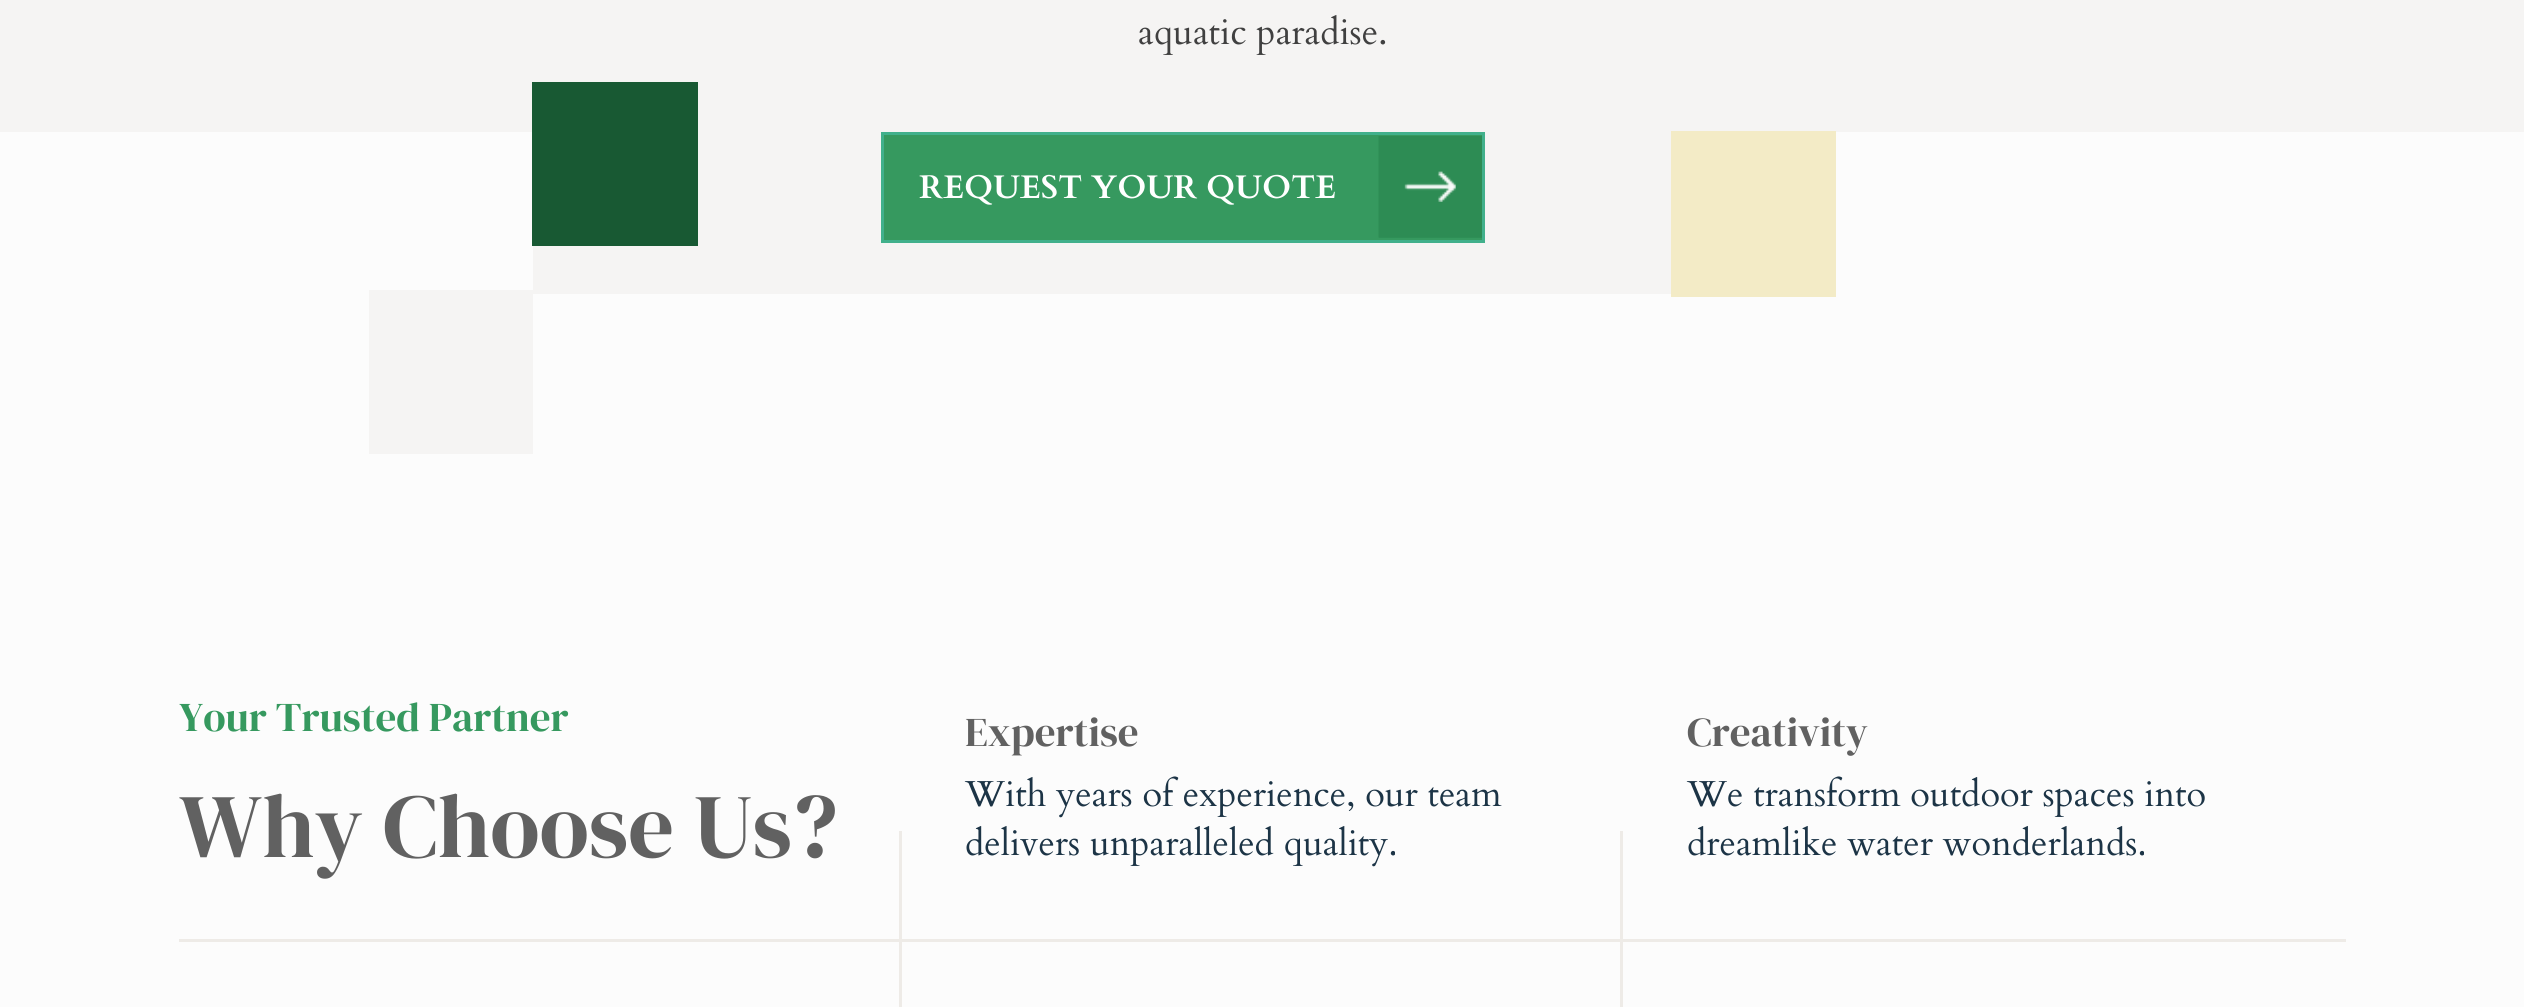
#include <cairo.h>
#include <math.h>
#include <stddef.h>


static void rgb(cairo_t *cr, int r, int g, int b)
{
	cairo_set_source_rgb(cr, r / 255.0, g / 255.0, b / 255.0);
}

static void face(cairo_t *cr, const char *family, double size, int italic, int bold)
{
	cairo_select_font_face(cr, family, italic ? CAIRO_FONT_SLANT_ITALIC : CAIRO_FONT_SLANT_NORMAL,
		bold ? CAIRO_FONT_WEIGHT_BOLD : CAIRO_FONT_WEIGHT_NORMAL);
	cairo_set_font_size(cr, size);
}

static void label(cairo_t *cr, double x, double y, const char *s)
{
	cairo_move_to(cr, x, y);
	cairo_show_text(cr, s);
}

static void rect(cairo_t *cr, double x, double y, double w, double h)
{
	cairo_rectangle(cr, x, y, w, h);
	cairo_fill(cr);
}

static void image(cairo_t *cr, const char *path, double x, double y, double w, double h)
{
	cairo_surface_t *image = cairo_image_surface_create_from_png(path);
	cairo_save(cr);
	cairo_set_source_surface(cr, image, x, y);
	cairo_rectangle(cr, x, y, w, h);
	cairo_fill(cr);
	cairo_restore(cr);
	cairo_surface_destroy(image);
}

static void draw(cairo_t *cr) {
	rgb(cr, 245, 244, 243);
	cairo_paint(cr);
	face(cr, "Cardo", 36.2, 0, 0);
	rgb(cr, 64, 64, 64);
	label(cr, 1138, 44, "aquatic paradise.");
	rgb(cr, 252, 252, 252);
	rect(cr, 0, 132, 2524, 875);
	rgb(cr, 245, 244, 243);
	rect(cr, 533, 132, 1138, 162);
	rgb(cr, 24, 89, 51);
	rect(cr, 532, 82, 166, 164);
	rgb(cr, 54, 153, 95);
	cairo_rectangle(cr, 882.5, 133.5, 601, 108);
	cairo_fill_preserve(cr);
	rgb(cr, 65, 176, 139);
	cairo_set_line_width(cr, 3);
	cairo_stroke(cr);
	face(cr, "Cardo", 32.75, 0, 1);
	rgb(cr, 255, 255, 255);
	label(cr, 919, 198, "REQUEST YOUR QUOTE");
	image(cr, "image0.png", 1378, 136, 104, 102);
	rgb(cr, 243, 235, 198);
	rect(cr, 1671, 131, 165, 166);
	rgb(cr, 245, 244, 243);
	rect(cr, 369, 290, 164, 164);
	rgb(cr, 238, 235, 231);
	rect(cr, 179, 939, 2167, 3);
	face(cr, "DM Serif Display", 41, 0, 0);
	rgb(cr, 54, 153, 95);
	label(cr, 179, 731, "Your Trusted Partner");
	face(cr, "DM Serif Display", 90.5, 0, 0);
	rgb(cr, 97, 97, 97);
	label(cr, 179, 857, "Why Choose Us?");
	rgb(cr, 238, 235, 231);
	rect(cr, 899, 831, 3, 176);
	face(cr, "DM Serif Display", 41, 0, 0);
	rgb(cr, 97, 97, 97);
	label(cr, 965, 746, "Expertise");
	face(cr, "Cardo", 36.2, 0, 0);
	rgb(cr, 28, 52, 70);
	label(cr, 965, 806, "With years of experience, our team");
	label(cr, 965, 855, "delivers unparalleled quality.");
	rgb(cr, 238, 235, 231);
	rect(cr, 1620, 831, 3, 176);
	face(cr, "DM Serif Display", 41, 0, 0);
	rgb(cr, 97, 97, 97);
	label(cr, 1687, 746, "Creativity");
	face(cr, "Cardo", 36.2, 0, 0);
	rgb(cr, 28, 52, 70);
	label(cr, 1687, 806, "We transform outdoor spaces into");
	label(cr, 1687, 855, "dreamlike water wonderlands.");
}

int main(void) {
	cairo_surface_t *surface = cairo_image_surface_create(CAIRO_FORMAT_RGB24, 2524, 1007);
	cairo_t *cr = cairo_create(surface);
	cairo_font_options_t *options = cairo_font_options_create();
	cairo_font_options_set_hint_metrics(options, CAIRO_HINT_METRICS_OFF);
	cairo_font_options_set_hint_style(options, CAIRO_HINT_STYLE_NONE);
	cairo_set_font_options(cr, options);
	cairo_set_miter_limit(cr, 4);
	draw(cr);
	cairo_surface_write_to_png(surface, "render.png");
	cairo_font_options_destroy(options);
	cairo_destroy(cr);
	cairo_surface_destroy(surface);
	return 0;
}
